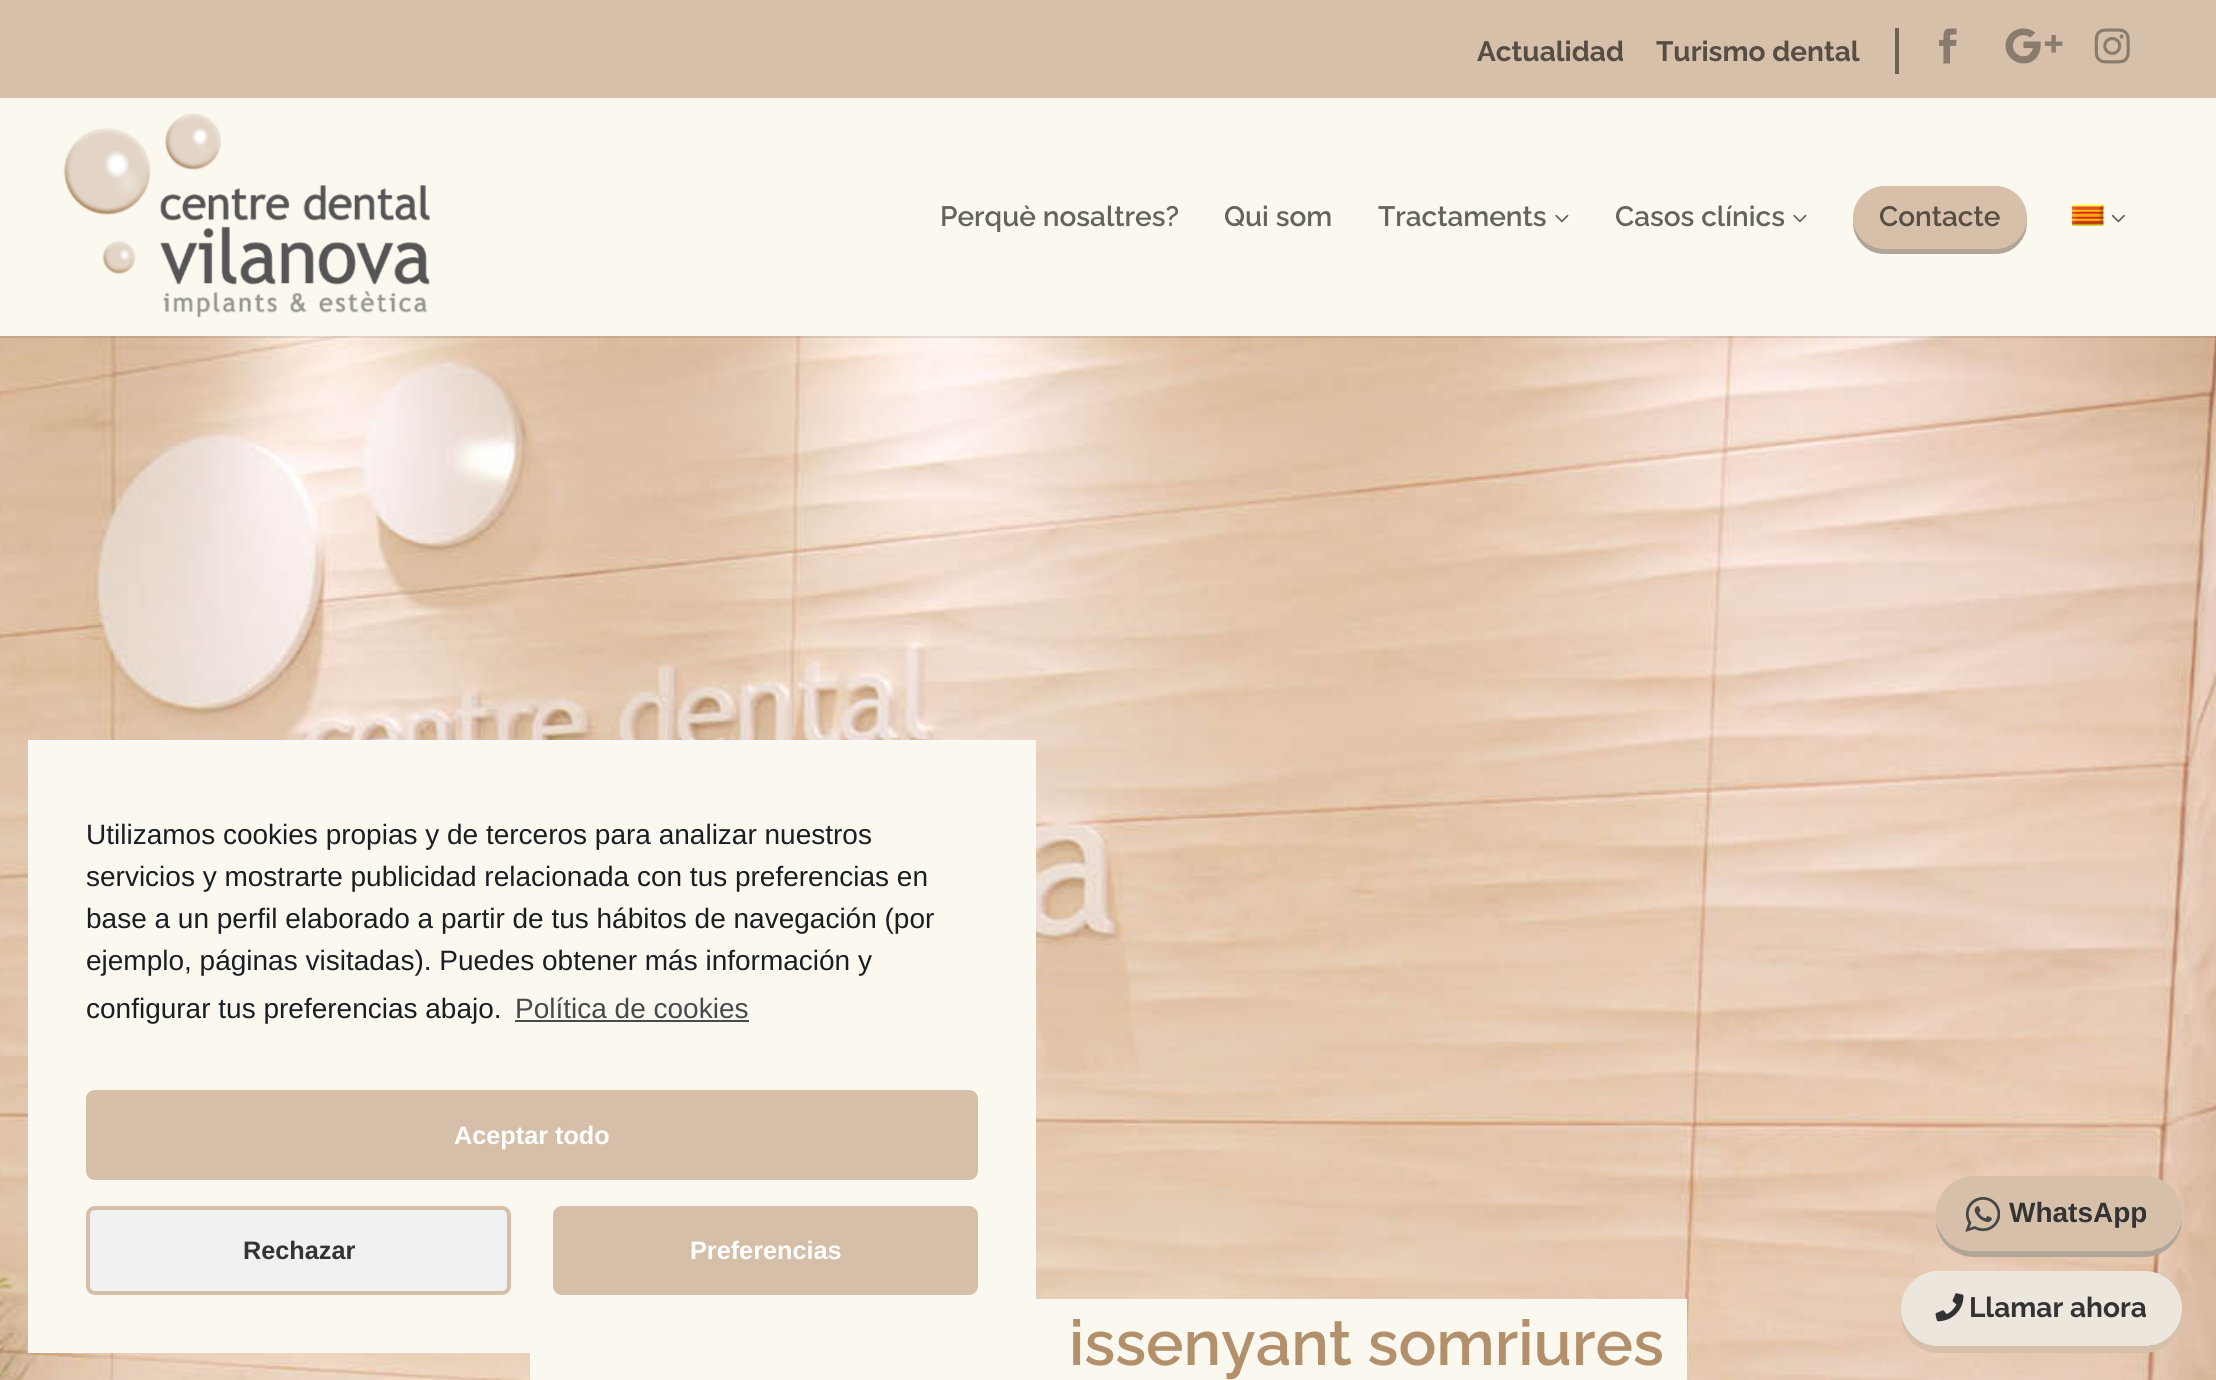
#include <cairo.h>
#include <math.h>
#include <stddef.h>


static void rgb(cairo_t *cr, int r, int g, int b)
{
	cairo_set_source_rgb(cr, r / 255.0, g / 255.0, b / 255.0);
}

static void face(cairo_t *cr, const char *family, double size, int italic, int bold)
{
	cairo_select_font_face(cr, family, italic ? CAIRO_FONT_SLANT_ITALIC : CAIRO_FONT_SLANT_NORMAL,
		bold ? CAIRO_FONT_WEIGHT_BOLD : CAIRO_FONT_WEIGHT_NORMAL);
	cairo_set_font_size(cr, size);
}

static void label(cairo_t *cr, double x, double y, const char *s)
{
	cairo_move_to(cr, x, y);
	cairo_show_text(cr, s);
}

static void rect(cairo_t *cr, double x, double y, double w, double h)
{
	cairo_rectangle(cr, x, y, w, h);
	cairo_fill(cr);
}

static void rrect(cairo_t *cr, double x, double y, double w, double h, double r)
{
	cairo_new_sub_path(cr);
	cairo_arc(cr, x + w - r, y + h - r, r, 0, M_PI / 2);
	cairo_arc(cr, x + r, y + h - r, r, M_PI / 2, M_PI);
	cairo_arc(cr, x + r, y + r, r, M_PI, 1.5 * M_PI);
	cairo_arc(cr, x + w - r, y + r, r, 1.5 * M_PI, 2 * M_PI);
	cairo_close_path(cr);
}

static void image(cairo_t *cr, const char *path, double x, double y, double w, double h)
{
	cairo_surface_t *image = cairo_image_surface_create_from_png(path);
	cairo_save(cr);
	cairo_set_source_surface(cr, image, x, y);
	cairo_rectangle(cr, x, y, w, h);
	cairo_fill(cr);
	cairo_restore(cr);
	cairo_surface_destroy(image);
}

static void draw(cairo_t *cr) {
	rgb(cr, 251, 248, 239);
	cairo_paint(cr);
	image(cr, "image7.png", 0, 336, 2216, 1044);
	rgb(cr, 251, 248, 239);
	rect(cr, 530, 1299, 1157, 81);
	cairo_rectangle(cr, 29, 741, 1006, 611);
	cairo_fill_preserve(cr);
	rgb(cr, 249, 249, 249);
	cairo_stroke(cr);
	face(cr, "Liberation Sans", 28, 0, 0);
	rgb(cr, 25, 30, 35);
	label(cr, 86, 844, "Utilizamos cookies propias y de terceros para analizar nuestros");
	label(cr, 86, 886, "servicios y mostrarte publicidad relacionada con tus preferencias en");
	label(cr, 86, 928, "base a un perfil elaborado a partir de tus hábitos de navegación (por");
	label(cr, 86, 970, "ejemplo, páginas visitadas). Puedes obtener más información y");
	label(cr, 86, 1018, "configurar tus preferencias abajo.");
	rgb(cr, 70, 74, 76);
	label(cr, 515, 1018, "Política de cookies");
	rect(cr, 515, 1020, 234, 2);
	rgb(cr, 213, 191, 168);
	rrect(cr, 88, 1092, 888, 86, 7);
	cairo_fill_preserve(cr);
	cairo_set_line_width(cr, 4);
	cairo_stroke(cr);
	face(cr, "Liberation Sans", 25.25, 0, 1);
	rgb(cr, 255, 255, 255);
	label(cr, 454, 1144, "Aceptar todo");
	rgb(cr, 241, 241, 241);
	rrect(cr, 88, 1208, 421, 85, 7);
	cairo_fill_preserve(cr);
	rgb(cr, 213, 191, 168);
	cairo_stroke(cr);
	rgb(cr, 51, 51, 51);
	label(cr, 243, 1259, "Rechazar");
	rgb(cr, 213, 191, 168);
	rrect(cr, 555, 1208, 421, 85, 7);
	cairo_fill_preserve(cr);
	cairo_stroke(cr);
	rgb(cr, 255, 255, 255);
	label(cr, 690, 1259, "Preferencias");
	rgb(cr, 214, 192, 170);
	rect(cr, 0, 0, 2216, 98);
	face(cr, "Raleway", 28, 0, 1);
	rgb(cr, 86, 77, 68);
	label(cr, 1477, 61, "Actualidad");
	label(cr, 1656, 61, "Turismo dental");
	rgb(cr, 110, 98, 85);
	rect(cr, 1895, 28, 4, 46);
	image(cr, "image0.png", 1939, 28, 18, 36);
	image(cr, "image1.png", 2005, 28, 58, 36);
	image(cr, "image2.png", 2094, 28, 36, 36);
	cairo_set_source_rgba(cr, 0, 0, 0, 0.1);
	rect(cr, 0, 336, 2216, 2);
	image(cr, "image3.png", 63, 113, 367, 205);
	face(cr, "Raleway SemiBold", 28, 0, 0);
	rgb(cr, 100, 99, 96);
	label(cr, 940, 226, "Perquè nosaltres?");
	label(cr, 1224, 226, "Qui som");
	label(cr, 1378, 226, "Tractaments");
	image(cr, "image4.png", 1555, 214, 14, 9);
	label(cr, 1615, 226, "Casos clínics");
	image(cr, "image4.png", 1793, 214, 14, 9);
	rgb(cr, 177, 165, 153);
	cairo_new_path(cr);
	cairo_move_to(cr, 1853, 218);
	cairo_line_to(cr, 1853, 222);
	cairo_curve_to(cr, 1853, 240, 1867, 254, 1884, 254);
	cairo_line_to(cr, 1996, 254);
	cairo_curve_to(cr, 2013, 254, 2027, 240, 2027, 222);
	cairo_line_to(cr, 2026, 217);
	cairo_curve_to(cr, 2026, 234, 2012, 248, 1995, 248);
	cairo_line_to(cr, 1885, 248);
	cairo_curve_to(cr, 1868, 248, 1854, 235, 1853, 218);
	cairo_close_path(cr);
	cairo_fill(cr);
	rgb(cr, 214, 192, 170);
	rrect(cr, 1853, 186, 174, 63, 31.5);
	cairo_fill(cr);
	rgb(cr, 86, 77, 68);
	label(cr, 1879, 226, "Contacte");
	image(cr, "image5.png", 2072, 204, 32, 22);
	image(cr, "image6.png", 2111, 214, 14, 9);
	face(cr, "Raleway SemiBold", 63, 0, 0);
	rgb(cr, 178, 144, 107);
	label(cr, 1069, 1365, "issenyant somriures");
	rgb(cr, 177, 165, 153);
	cairo_new_path(cr);
	cairo_move_to(cr, 1936, 1220);
	cairo_curve_to(cr, 1936, 1240, 1953, 1257, 1974, 1257);
	cairo_line_to(cr, 2144, 1257);
	cairo_curve_to(cr, 2165, 1257, 2182, 1240, 2182, 1219);
	cairo_line_to(cr, 2182, 1218);
	cairo_curve_to(cr, 2180, 1237, 2164, 1251, 2145, 1251);
	cairo_line_to(cr, 1973, 1251);
	cairo_curve_to(cr, 1954, 1251, 1939, 1238, 1936, 1220);
	cairo_close_path(cr);
	cairo_fill(cr);
	rgb(cr, 214, 192, 170);
	rrect(cr, 1936, 1176, 246, 75, 37.5);
	cairo_fill(cr);
	image(cr, "image8.png", 1965, 1197, 35, 35);
	face(cr, "Liberation Sans", 28, 0, 1);
	rgb(cr, 51, 51, 51);
	label(cr, 2009, 1222, "WhatsApp");
	rgb(cr, 214, 192, 169);
	cairo_new_path(cr);
	cairo_move_to(cr, 1901, 1314);
	cairo_line_to(cr, 1901, 1316);
	cairo_curve_to(cr, 1901, 1336, 1918, 1353, 1938, 1353);
	cairo_line_to(cr, 2144, 1353);
	cairo_curve_to(cr, 2165, 1353, 2182, 1336, 2182, 1316);
	cairo_line_to(cr, 2182, 1313);
	cairo_curve_to(cr, 2179, 1332, 2164, 1346, 2145, 1346);
	cairo_line_to(cr, 1938, 1346);
	cairo_curve_to(cr, 1919, 1346, 1904, 1332, 1901, 1314);
	cairo_close_path(cr);
	cairo_fill(cr);
	rgb(cr, 237, 230, 220);
	rrect(cr, 1901, 1271, 281, 75, 37.5);
	cairo_fill(cr);
	image(cr, "image9.png", 1935, 1293, 29, 29);
	face(cr, "Raleway", 28, 0, 1);
	rgb(cr, 51, 51, 51);
	label(cr, 1969, 1317, "Llamar ahora");
}

int main(void) {
	cairo_surface_t *surface = cairo_image_surface_create(CAIRO_FORMAT_RGB24, 2216, 1380);
	cairo_t *cr = cairo_create(surface);
	cairo_font_options_t *options = cairo_font_options_create();
	cairo_font_options_set_hint_metrics(options, CAIRO_HINT_METRICS_OFF);
	cairo_font_options_set_hint_style(options, CAIRO_HINT_STYLE_NONE);
	cairo_set_font_options(cr, options);
	cairo_set_miter_limit(cr, 4);
	draw(cr);
	cairo_surface_write_to_png(surface, "render.png");
	cairo_font_options_destroy(options);
	cairo_destroy(cr);
	cairo_surface_destroy(surface);
	return 0;
}
